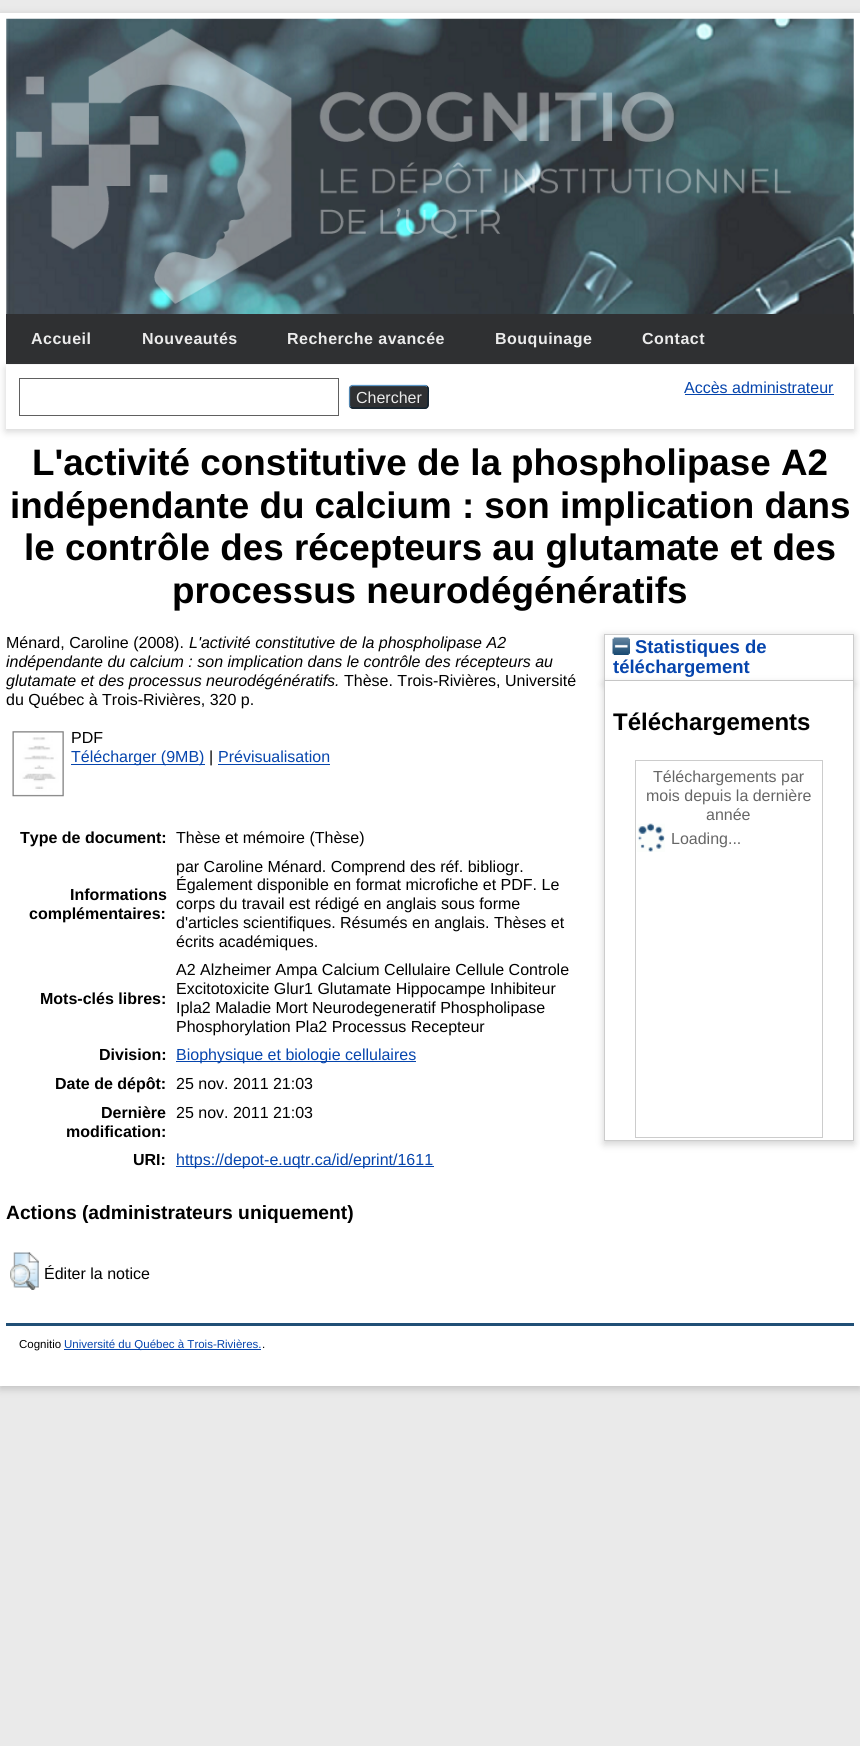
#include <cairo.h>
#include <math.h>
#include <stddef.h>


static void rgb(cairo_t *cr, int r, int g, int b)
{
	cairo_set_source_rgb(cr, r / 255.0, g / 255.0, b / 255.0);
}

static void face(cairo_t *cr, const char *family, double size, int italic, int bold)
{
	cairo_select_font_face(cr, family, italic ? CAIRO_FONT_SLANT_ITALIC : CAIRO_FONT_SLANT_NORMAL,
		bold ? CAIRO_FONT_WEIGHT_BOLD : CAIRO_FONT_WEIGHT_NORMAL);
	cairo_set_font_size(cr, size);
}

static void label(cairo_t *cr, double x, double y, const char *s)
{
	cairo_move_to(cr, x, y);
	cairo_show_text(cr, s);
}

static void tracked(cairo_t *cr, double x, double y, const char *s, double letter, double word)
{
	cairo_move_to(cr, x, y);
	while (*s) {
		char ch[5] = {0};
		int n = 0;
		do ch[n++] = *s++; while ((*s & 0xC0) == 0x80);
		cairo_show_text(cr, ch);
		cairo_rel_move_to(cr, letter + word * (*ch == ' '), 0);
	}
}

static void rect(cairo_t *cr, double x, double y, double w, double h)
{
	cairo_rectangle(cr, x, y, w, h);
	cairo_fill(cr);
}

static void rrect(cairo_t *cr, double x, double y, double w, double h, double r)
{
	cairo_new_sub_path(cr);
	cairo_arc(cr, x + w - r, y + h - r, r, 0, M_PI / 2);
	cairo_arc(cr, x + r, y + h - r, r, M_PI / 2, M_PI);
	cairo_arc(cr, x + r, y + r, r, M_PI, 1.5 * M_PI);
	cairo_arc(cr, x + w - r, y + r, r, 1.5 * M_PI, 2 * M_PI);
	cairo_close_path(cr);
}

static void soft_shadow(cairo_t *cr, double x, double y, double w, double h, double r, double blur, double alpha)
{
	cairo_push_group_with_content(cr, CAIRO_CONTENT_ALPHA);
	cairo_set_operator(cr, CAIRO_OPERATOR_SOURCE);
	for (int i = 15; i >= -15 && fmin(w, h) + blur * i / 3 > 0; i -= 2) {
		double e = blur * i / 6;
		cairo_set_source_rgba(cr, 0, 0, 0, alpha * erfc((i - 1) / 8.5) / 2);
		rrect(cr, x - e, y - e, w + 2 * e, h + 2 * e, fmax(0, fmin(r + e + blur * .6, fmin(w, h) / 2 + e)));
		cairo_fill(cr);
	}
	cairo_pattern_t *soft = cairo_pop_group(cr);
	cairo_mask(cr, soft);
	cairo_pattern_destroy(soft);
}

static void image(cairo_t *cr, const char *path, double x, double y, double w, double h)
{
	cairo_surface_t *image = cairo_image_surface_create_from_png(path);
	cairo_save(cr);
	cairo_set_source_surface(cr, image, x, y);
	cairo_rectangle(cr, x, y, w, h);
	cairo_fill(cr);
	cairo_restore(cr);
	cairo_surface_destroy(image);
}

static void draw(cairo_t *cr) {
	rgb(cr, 234, 234, 234);
	cairo_paint(cr);
	rgb(cr, 100, 100, 100);
	soft_shadow(cr, 0, 15, 860, 1374, 0, 4, 0.3);
	rgb(cr, 255, 255, 255);
	rect(cr, 0, 13, 860, 1373);
	image(cr, "image0.png", 6, 18, 848, 296);
	image(cr, "image1.png", 16, 28, 776, 276);
	rgb(cr, 47, 48, 50);
	rect(cr, 6, 314, 848, 50);
	face(cr, "Liberation Sans", 16, 0, 1);
	rgb(cr, 235, 235, 235);
	tracked(cr, 31, 344, "Accueil", 0.5, 0);
	tracked(cr, 142, 344, "Nouveautés", 0.5, 0);
	tracked(cr, 287, 344, "Recherche avancée", 0.5, 0);
	tracked(cr, 495, 344, "Bouquinage", 0.5, 0);
	tracked(cr, 642, 344, "Contact", 0.5, 0);
	rgb(cr, 100, 100, 100);
	soft_shadow(cr, 6, 368, 848, 63, 0, 4, 0.3);
	rgb(cr, 255, 255, 255);
	rect(cr, 6, 365, 848, 64);
	face(cr, "Liberation Sans", 16, 0, 0);
	rgb(cr, 6, 69, 173);
	label(cr, 684, 393, "Accès administrateur");
	rect(cr, 685, 394, 149, 1);
	cairo_rectangle(cr, 19.5, 378.5, 319, 37);
	rgb(cr, 96, 96, 96);
	cairo_set_line_width(cr, 1);
	cairo_stroke(cr);
	rgb(cr, 47, 48, 50);
	rrect(cr, 349, 385, 80, 24, 4);
	cairo_fill(cr);
	cairo_new_path(cr);
	cairo_move_to(cr, 350.5, 386.5);
	cairo_line_to(cr, 352, 385.5);
	cairo_line_to(cr, 425.5, 385.5);
	cairo_line_to(cr, 427, 386.5);
	rgb(cr, 91, 151, 199);
	cairo_set_line_width(cr, 1.2);
	cairo_stroke(cr);
	cairo_new_path(cr);
	cairo_move_to(cr, 427, 386.5);
	cairo_curve_to(cr, 429.5, 388.5, 428, 394.5, 428, 397);
	cairo_curve_to(cr, 428, 411, 429, 408, 413, 408);
	cairo_line_to(cr, 352.5, 408);
	cairo_line_to(cr, 350.5, 407);
	rgb(cr, 13, 33, 49);
	cairo_stroke(cr);
	cairo_new_path(cr);
	cairo_move_to(cr, 350.5, 407);
	cairo_curve_to(cr, 349.5, 406.5, 349.5, 406, 349.5, 405);
	cairo_line_to(cr, 349.5, 389);
	cairo_curve_to(cr, 349.5, 388, 349.5, 387, 350.5, 386.5);
	rgb(cr, 82, 135, 179);
	cairo_stroke(cr);
	rgb(cr, 235, 235, 235);
	label(cr, 356, 403, "Chercher");
	face(cr, "Liberation Sans", 36.8, 0, 1);
	rgb(cr, 0, 0, 0);
	label(cr, 32, 475, "L'activité constitutive de la phospholipase A2");
	label(cr, 10, 518, "indépendante du calcium : son implication dans");
	label(cr, 24, 560, "le contrôle des récepteurs au glutamate et des");
	label(cr, 172, 603, "processus neurodégénératifs");
	face(cr, "Liberation Sans", 16, 0, 0);
	label(cr, 6, 648, "Ménard, Caroline (2008).");
	face(cr, "Liberation Sans", 16, 1, 0);
	label(cr, 189, 648, "L'activité constitutive de la phospholipase A2");
	label(cr, 6, 667, "indépendante du calcium : son implication dans le contrôle des récepteurs au");
	label(cr, 6, 686, "glutamate et des processus neurodégénératifs.");
	face(cr, "Liberation Sans", 16, 0, 0);
	label(cr, 344, 686, "Thèse. Trois-Rivières, Université");
	label(cr, 6, 705, "du Québec à Trois-Rivières, 320 p.");
	image(cr, "image2.png", 12, 731, 52, 66);
	label(cr, 71, 743, "PDF");
	rgb(cr, 6, 69, 173);
	rect(cr, 71, 764, 134, 1);
	label(cr, 71, 762, "Télécharger (9MB)");
	rgb(cr, 0, 0, 0);
	label(cr, 209, 762, "|");
	rgb(cr, 6, 69, 173);
	label(cr, 218, 762, "Prévisualisation");
	rect(cr, 218, 764, 112, 1);
	face(cr, "Liberation Sans", 16, 0, 1);
	rgb(cr, 0, 0, 0);
	label(cr, 20, 843, "Type de document:");
	face(cr, "Liberation Sans", 16, 0, 0);
	label(cr, 176, 843, "Thèse et mémoire (Thèse)");
	face(cr, "Liberation Sans", 16, 0, 1);
	label(cr, 70, 900, "Informations");
	label(cr, 29, 919, "complémentaires:");
	face(cr, "Liberation Sans", 16, 0, 0);
	label(cr, 176, 872, "par Caroline Ménard. Comprend des réf. bibliogr.");
	label(cr, 176, 890, "Également disponible en format microfiche et PDF. Le");
	label(cr, 176, 909, "corps du travail est rédigé en anglais sous forme");
	label(cr, 176, 928, "d'articles scientifiques. Résumés en anglais. Thèses et");
	label(cr, 176, 947, "écrits académiques.");
	face(cr, "Liberation Sans", 16, 0, 1);
	label(cr, 40, 1004, "Mots-clés libres:");
	face(cr, "Liberation Sans", 16, 0, 0);
	label(cr, 176, 975, "A2 Alzheimer Ampa Calcium Cellulaire Cellule Controle");
	label(cr, 176, 994, "Excitotoxicite Glur1 Glutamate Hippocampe Inhibiteur");
	label(cr, 176, 1013, "Ipla2 Maladie Mort Neurodegeneratif Phospholipase");
	label(cr, 176, 1032, "Phosphorylation Pla2 Processus Recepteur");
	face(cr, "Liberation Sans", 16, 0, 1);
	label(cr, 99, 1060, "Division:");
	rgb(cr, 6, 69, 173);
	rect(cr, 176, 1061, 240, 1);
	face(cr, "Liberation Sans", 16, 0, 0);
	label(cr, 176, 1060, "Biophysique et biologie cellulaires");
	face(cr, "Liberation Sans", 16, 0, 1);
	rgb(cr, 0, 0, 0);
	label(cr, 55, 1089, "Date de dépôt:");
	face(cr, "Liberation Sans", 16, 0, 0);
	label(cr, 176, 1089, "25 nov. 2011 21:03");
	face(cr, "Liberation Sans", 16, 0, 1);
	label(cr, 101, 1118, "Dernière");
	label(cr, 66, 1137, "modification:");
	face(cr, "Liberation Sans", 16, 0, 0);
	label(cr, 176, 1118, "25 nov. 2011 21:03");
	face(cr, "Liberation Sans", 16, 0, 1);
	label(cr, 133, 1165, "URI:");
	rgb(cr, 6, 69, 173);
	rect(cr, 176, 1166, 258, 1);
	face(cr, "Liberation Sans", 16, 0, 0);
	label(cr, 176, 1165, "https://depot-e.uqtr.ca/id/eprint/1611");
	face(cr, "Liberation Sans", 19.25, 0, 1);
	rgb(cr, 0, 0, 0);
	label(cr, 6, 1219, "Actions (administrateurs uniquement)");
	image(cr, "image3.png", 10, 1252, 29, 38);
	face(cr, "Liberation Sans", 16, 0, 0);
	label(cr, 44, 1279, "Éditer la notice");
	rgb(cr, 100, 100, 100);
	soft_shadow(cr, 604, 636, 250, 48, 0, 4, 0.3);
	rgb(cr, 255, 255, 255);
	cairo_rectangle(cr, 604.5, 634.5, 249, 46);
	cairo_fill_preserve(cr);
	rgb(cr, 204, 204, 204);
	cairo_set_line_width(cr, 1);
	cairo_stroke(cr);
	image(cr, "image4.png", 612, 637, 18, 18);
	face(cr, "Liberation Sans", 18.5, 0, 1);
	rgb(cr, 6, 69, 173);
	label(cr, 635, 653, "Statistiques de");
	rgb(cr, 100, 100, 100);
	soft_shadow(cr, 604, 684, 250, 460, 0, 4, 0.3);
	rgb(cr, 6, 69, 173);
	label(cr, 613, 673, "téléchargement");
	rgb(cr, 255, 255, 255);
	rect(cr, 605, 681, 248, 459);
	rgb(cr, 204, 204, 204);
	rect(cr, 853, 681, 1, 460);
	rect(cr, 604, 1140, 250, 1);
	rect(cr, 604, 681, 1, 460);
	face(cr, "Liberation Sans", 24, 0, 1);
	rgb(cr, 0, 0, 0);
	label(cr, 613, 730, "Téléchargements");
	cairo_rectangle(cr, 635.5, 760.5, 187, 377);
	rgb(cr, 204, 204, 204);
	cairo_stroke(cr);
	face(cr, "Liberation Sans", 16, 0, 0);
	rgb(cr, 102, 102, 102);
	label(cr, 653, 782, "Téléchargements par");
	label(cr, 646, 801, "mois depuis la dernière");
	label(cr, 706, 820, "année");
	image(cr, "image5.png", 637, 823, 28, 29);
	label(cr, 671, 844, "Loading...");
	rgb(cr, 32, 79, 118);
	rect(cr, 6, 1323, 848, 3);
	face(cr, "Liberation Sans", 11.5, 0, 0);
	rgb(cr, 0, 0, 0);
	label(cr, 19, 1348, "Cognitio");
	rgb(cr, 6, 69, 173);
	rect(cr, 64, 1349, 197, 1);
	label(cr, 64, 1348, "Université du Québec à Trois-Rivières.");
	rgb(cr, 0, 0, 0);
	label(cr, 262, 1348, ".");
}

int main(void) {
	cairo_surface_t *surface = cairo_image_surface_create(CAIRO_FORMAT_RGB24, 860, 1746);
	cairo_t *cr = cairo_create(surface);
	cairo_font_options_t *options = cairo_font_options_create();
	cairo_font_options_set_hint_metrics(options, CAIRO_HINT_METRICS_OFF);
	cairo_font_options_set_hint_style(options, CAIRO_HINT_STYLE_NONE);
	cairo_set_font_options(cr, options);
	cairo_set_miter_limit(cr, 4);
	draw(cr);
	cairo_surface_write_to_png(surface, "render.png");
	cairo_font_options_destroy(options);
	cairo_destroy(cr);
	cairo_surface_destroy(surface);
	return 0;
}
